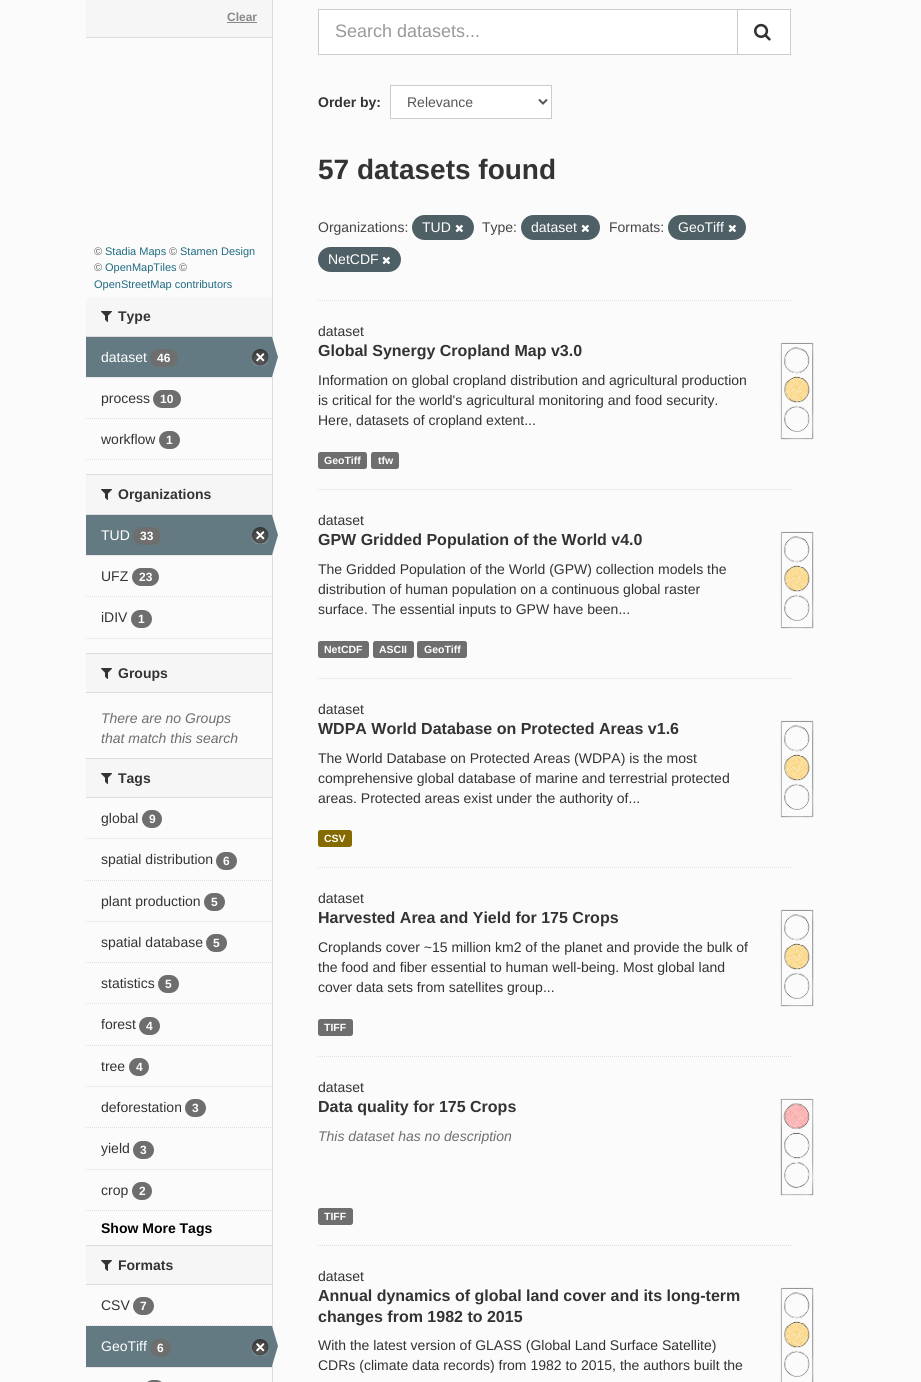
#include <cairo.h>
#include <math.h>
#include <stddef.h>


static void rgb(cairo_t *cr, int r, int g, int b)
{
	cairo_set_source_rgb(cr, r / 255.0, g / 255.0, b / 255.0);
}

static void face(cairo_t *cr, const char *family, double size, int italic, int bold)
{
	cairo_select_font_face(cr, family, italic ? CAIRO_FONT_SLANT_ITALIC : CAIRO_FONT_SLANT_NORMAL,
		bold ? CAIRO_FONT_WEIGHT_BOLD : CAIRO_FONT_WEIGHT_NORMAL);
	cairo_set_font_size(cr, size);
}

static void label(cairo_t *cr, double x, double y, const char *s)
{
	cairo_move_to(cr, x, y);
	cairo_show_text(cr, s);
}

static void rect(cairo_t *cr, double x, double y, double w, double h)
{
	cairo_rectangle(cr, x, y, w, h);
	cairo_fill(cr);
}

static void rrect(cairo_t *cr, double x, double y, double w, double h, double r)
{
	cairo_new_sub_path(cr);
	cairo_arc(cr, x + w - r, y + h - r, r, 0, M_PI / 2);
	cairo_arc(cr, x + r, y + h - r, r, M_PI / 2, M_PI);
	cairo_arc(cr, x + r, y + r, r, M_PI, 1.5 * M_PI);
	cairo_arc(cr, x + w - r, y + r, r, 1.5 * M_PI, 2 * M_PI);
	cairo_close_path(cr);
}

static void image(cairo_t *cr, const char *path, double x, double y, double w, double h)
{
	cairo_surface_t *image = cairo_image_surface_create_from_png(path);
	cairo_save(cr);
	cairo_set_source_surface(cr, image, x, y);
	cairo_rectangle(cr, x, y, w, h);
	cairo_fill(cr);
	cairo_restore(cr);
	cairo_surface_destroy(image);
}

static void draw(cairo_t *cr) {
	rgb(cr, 251, 251, 251);
	cairo_paint(cr);
	rgb(cr, 246, 246, 246);
	rect(cr, 86, 0, 186, 37);
	rgb(cr, 221, 221, 221);
	rect(cr, 86, 37, 186, 1);
	face(cr, "Liberation Sans", 12, 0, 1);
	rgb(cr, 136, 136, 136);
	label(cr, 227, 21, "Clear");
	rect(cr, 227, 22, 30, 1);
	face(cr, "Liberation Sans", 11, 0, 0);
	rgb(cr, 102, 102, 102);
	label(cr, 94, 255, "©");
	rgb(cr, 32, 107, 130);
	label(cr, 105, 255, "Stadia Maps");
	rgb(cr, 102, 102, 102);
	label(cr, 169, 255, "©");
	rgb(cr, 32, 107, 130);
	label(cr, 180, 255, "Stamen Design");
	rgb(cr, 102, 102, 102);
	label(cr, 94, 271, "©");
	rgb(cr, 32, 107, 130);
	label(cr, 105, 271, "OpenMapTiles");
	rgb(cr, 102, 102, 102);
	label(cr, 179, 271, "©");
	rgb(cr, 32, 107, 130);
	label(cr, 94, 288, "OpenStreetMap contributors");
	rgb(cr, 246, 246, 246);
	cairo_new_path(cr);
	cairo_move_to(cr, 89, 297);
	cairo_line_to(cr, 272, 297);
	cairo_line_to(cr, 272, 337);
	cairo_line_to(cr, 86, 337);
	cairo_line_to(cr, 86, 300);
	cairo_curve_to(cr, 86, 298.5, 87.5, 297, 89, 297);
	cairo_close_path(cr);
	cairo_fill(cr);
	rgb(cr, 221, 221, 221);
	rect(cr, 86, 336, 186, 1);
	image(cr, "image0.png", 101, 311, 11, 11);
	face(cr, "Liberation Sans", 14, 0, 1);
	rgb(cr, 51, 51, 51);
	label(cr, 118, 321, "Type");
	rgb(cr, 246, 246, 246);
	rect(cr, 87, 377, 185, 1);
	cairo_new_path(cr);
	cairo_move_to(cr, 86, 377.5);
	cairo_line_to(cr, 272, 377.5);
	rgb(cr, 221, 221, 221);
	cairo_set_line_width(cr, 1);
	cairo_set_dash(cr, (double[]){1, 1}, 2, 0);
	cairo_stroke(cr);
	rgb(cr, 100, 122, 130);
	rect(cr, 86, 337, 186, 40);
	face(cr, "Liberation Sans", 14, 0, 0);
	rgb(cr, 255, 255, 255);
	label(cr, 101, 362, "dataset");
	rgb(cr, 110, 110, 110);
	rrect(cr, 150, 349, 28, 18, 9);
	cairo_fill(cr);
	face(cr, "Liberation Sans", 12, 0, 1);
	rgb(cr, 255, 255, 255);
	label(cr, 157, 362, "46");
	image(cr, "image1.png", 252, 349, 17, 17);
	rgb(cr, 221, 221, 221);
	rect(cr, 272, 0, 1, 1382);
	rgb(cr, 100, 122, 130);
	cairo_new_path(cr);
	cairo_move_to(cr, 272, 377);
	cairo_line_to(cr, 272, 337);
	cairo_line_to(cr, 278, 357);
	cairo_close_path(cr);
	cairo_fill(cr);
	cairo_new_path(cr);
	cairo_move_to(cr, 86, 418.5);
	cairo_line_to(cr, 272, 418.5);
	rgb(cr, 221, 221, 221);
	cairo_stroke(cr);
	face(cr, "Liberation Sans", 14, 0, 0);
	rgb(cr, 51, 51, 51);
	label(cr, 101, 403, "process");
	rgb(cr, 110, 110, 110);
	rrect(cr, 153, 390, 28, 18, 9);
	cairo_fill(cr);
	face(cr, "Liberation Sans", 12, 0, 1);
	rgb(cr, 255, 255, 255);
	label(cr, 160, 403, "10");
	face(cr, "Liberation Sans", 14, 0, 0);
	rgb(cr, 51, 51, 51);
	label(cr, 101, 444, "workflow");
	rgb(cr, 110, 110, 110);
	rrect(cr, 159, 431, 21, 18, 9);
	cairo_fill(cr);
	face(cr, "Liberation Sans", 12, 0, 1);
	rgb(cr, 255, 255, 255);
	label(cr, 166, 444, "1");
	cairo_new_path(cr);
	cairo_move_to(cr, 86, 459.5);
	cairo_line_to(cr, 272, 459.5);
	rgb(cr, 221, 221, 221);
	cairo_stroke(cr);
	rgb(cr, 246, 246, 246);
	rect(cr, 86, 475, 186, 39);
	rgb(cr, 221, 221, 221);
	rect(cr, 86, 474, 186, 1);
	rect(cr, 86, 514, 186, 1);
	image(cr, "image0.png", 101, 489, 11, 11);
	face(cr, "Liberation Sans", 14, 0, 1);
	rgb(cr, 51, 51, 51);
	label(cr, 118, 499, "Organizations");
	rgb(cr, 246, 246, 246);
	rect(cr, 87, 555, 185, 1);
	cairo_new_path(cr);
	cairo_move_to(cr, 86, 555.5);
	cairo_line_to(cr, 272, 555.5);
	rgb(cr, 221, 221, 221);
	cairo_stroke(cr);
	rgb(cr, 100, 122, 130);
	rect(cr, 86, 515, 186, 40);
	face(cr, "Liberation Sans", 14, 0, 0);
	rgb(cr, 255, 255, 255);
	label(cr, 101, 540, "TUD");
	rgb(cr, 110, 110, 110);
	rrect(cr, 133, 527, 28, 18, 9);
	cairo_fill(cr);
	face(cr, "Liberation Sans", 12, 0, 1);
	rgb(cr, 255, 255, 255);
	label(cr, 140, 540, "33");
	image(cr, "image1.png", 252, 527, 17, 17);
	rgb(cr, 100, 122, 130);
	cairo_new_path(cr);
	cairo_move_to(cr, 272, 555);
	cairo_line_to(cr, 272, 515);
	cairo_line_to(cr, 278, 535);
	cairo_close_path(cr);
	cairo_fill(cr);
	cairo_new_path(cr);
	cairo_move_to(cr, 86, 596.5);
	cairo_line_to(cr, 272, 596.5);
	rgb(cr, 221, 221, 221);
	cairo_stroke(cr);
	face(cr, "Liberation Sans", 14, 0, 0);
	rgb(cr, 51, 51, 51);
	label(cr, 101, 581, "UFZ");
	rgb(cr, 110, 110, 110);
	rrect(cr, 132, 568, 27, 18, 9);
	cairo_fill(cr);
	face(cr, "Liberation Sans", 12, 0, 1);
	rgb(cr, 255, 255, 255);
	label(cr, 139, 581, "23");
	face(cr, "Liberation Sans", 14, 0, 0);
	rgb(cr, 51, 51, 51);
	label(cr, 101, 622, "iDIV");
	rgb(cr, 110, 110, 110);
	rrect(cr, 131, 610, 21, 18, 9);
	cairo_fill(cr);
	face(cr, "Liberation Sans", 12, 0, 1);
	rgb(cr, 255, 255, 255);
	label(cr, 138, 623, "1");
	cairo_new_path(cr);
	cairo_move_to(cr, 86, 638.5);
	cairo_line_to(cr, 272, 638.5);
	rgb(cr, 221, 221, 221);
	cairo_stroke(cr);
	rgb(cr, 246, 246, 246);
	rect(cr, 86, 654, 186, 38);
	rgb(cr, 221, 221, 221);
	rect(cr, 86, 653, 186, 1);
	rect(cr, 86, 692, 186, 1);
	image(cr, "image0.png", 101, 668, 11, 11);
	face(cr, "Liberation Sans", 14, 0, 1);
	rgb(cr, 51, 51, 51);
	label(cr, 118, 678, "Groups");
	face(cr, "Liberation Sans", 14, 1, 0);
	rgb(cr, 110, 110, 110);
	label(cr, 101, 723, "There are no Groups");
	label(cr, 101, 743, "that match this search");
	rgb(cr, 246, 246, 246);
	rect(cr, 86, 759, 186, 38);
	rgb(cr, 221, 221, 221);
	rect(cr, 86, 758, 186, 1);
	rect(cr, 86, 797, 186, 1);
	image(cr, "image0.png", 101, 773, 11, 11);
	face(cr, "Liberation Sans", 14, 0, 1);
	rgb(cr, 51, 51, 51);
	label(cr, 118, 783, "Tags");
	cairo_new_path(cr);
	cairo_move_to(cr, 86, 838.5);
	cairo_line_to(cr, 272, 838.5);
	rgb(cr, 221, 221, 221);
	cairo_stroke(cr);
	face(cr, "Liberation Sans", 14, 0, 0);
	rgb(cr, 51, 51, 51);
	label(cr, 101, 823, "global");
	rgb(cr, 110, 110, 110);
	rrect(cr, 142, 810, 20, 18, 9);
	cairo_fill(cr);
	face(cr, "Liberation Sans", 12, 0, 1);
	rgb(cr, 255, 255, 255);
	label(cr, 149, 823, "9");
	cairo_new_path(cr);
	cairo_move_to(cr, 86, 880.5);
	cairo_line_to(cr, 272, 880.5);
	rgb(cr, 221, 221, 221);
	cairo_stroke(cr);
	face(cr, "Liberation Sans", 14, 0, 0);
	rgb(cr, 51, 51, 51);
	label(cr, 101, 864, "spatial distribution");
	rgb(cr, 110, 110, 110);
	rrect(cr, 216, 852, 21, 18, 9);
	cairo_fill(cr);
	face(cr, "Liberation Sans", 12, 0, 1);
	rgb(cr, 255, 255, 255);
	label(cr, 223, 865, "6");
	cairo_new_path(cr);
	cairo_move_to(cr, 86, 921.5);
	cairo_line_to(cr, 272, 921.5);
	rgb(cr, 221, 221, 221);
	cairo_stroke(cr);
	face(cr, "Liberation Sans", 14, 0, 0);
	rgb(cr, 51, 51, 51);
	label(cr, 101, 906, "plant production");
	rgb(cr, 110, 110, 110);
	rrect(cr, 204, 893, 21, 18, 9);
	cairo_fill(cr);
	face(cr, "Liberation Sans", 12, 0, 1);
	rgb(cr, 255, 255, 255);
	label(cr, 211, 906, "5");
	cairo_new_path(cr);
	cairo_move_to(cr, 86, 962.5);
	cairo_line_to(cr, 272, 962.5);
	rgb(cr, 221, 221, 221);
	cairo_stroke(cr);
	face(cr, "Liberation Sans", 14, 0, 0);
	rgb(cr, 51, 51, 51);
	label(cr, 101, 947, "spatial database");
	rgb(cr, 110, 110, 110);
	rrect(cr, 206, 934, 21, 18, 9);
	cairo_fill(cr);
	face(cr, "Liberation Sans", 12, 0, 1);
	rgb(cr, 255, 255, 255);
	label(cr, 213, 947, "5");
	cairo_new_path(cr);
	cairo_move_to(cr, 86, 1003.5);
	cairo_line_to(cr, 272, 1003.5);
	rgb(cr, 221, 221, 221);
	cairo_stroke(cr);
	face(cr, "Liberation Sans", 14, 0, 0);
	rgb(cr, 51, 51, 51);
	label(cr, 101, 988, "statistics");
	rgb(cr, 110, 110, 110);
	rrect(cr, 158, 975, 21, 18, 9);
	cairo_fill(cr);
	face(cr, "Liberation Sans", 12, 0, 1);
	rgb(cr, 255, 255, 255);
	label(cr, 165, 988, "5");
	cairo_new_path(cr);
	cairo_move_to(cr, 86, 1045.5);
	cairo_line_to(cr, 272, 1045.5);
	rgb(cr, 221, 221, 221);
	cairo_stroke(cr);
	face(cr, "Liberation Sans", 14, 0, 0);
	rgb(cr, 51, 51, 51);
	label(cr, 101, 1029, "forest");
	rgb(cr, 110, 110, 110);
	rrect(cr, 139, 1017, 21, 18, 9);
	cairo_fill(cr);
	face(cr, "Liberation Sans", 12, 0, 1);
	rgb(cr, 255, 255, 255);
	label(cr, 146, 1030, "4");
	cairo_new_path(cr);
	cairo_move_to(cr, 86, 1086.5);
	cairo_line_to(cr, 272, 1086.5);
	rgb(cr, 221, 221, 221);
	cairo_stroke(cr);
	face(cr, "Liberation Sans", 14, 0, 0);
	rgb(cr, 51, 51, 51);
	label(cr, 101, 1071, "tree");
	rgb(cr, 110, 110, 110);
	rrect(cr, 129, 1058, 20, 18, 9);
	cairo_fill(cr);
	face(cr, "Liberation Sans", 12, 0, 1);
	rgb(cr, 255, 255, 255);
	label(cr, 136, 1071, "4");
	cairo_new_path(cr);
	cairo_move_to(cr, 86, 1127.5);
	cairo_line_to(cr, 272, 1127.5);
	rgb(cr, 221, 221, 221);
	cairo_stroke(cr);
	face(cr, "Liberation Sans", 14, 0, 0);
	rgb(cr, 51, 51, 51);
	label(cr, 101, 1112, "deforestation");
	rgb(cr, 110, 110, 110);
	rrect(cr, 185, 1099, 21, 18, 9);
	cairo_fill(cr);
	face(cr, "Liberation Sans", 12, 0, 1);
	rgb(cr, 255, 255, 255);
	label(cr, 192, 1112, "3");
	cairo_new_path(cr);
	cairo_move_to(cr, 86, 1169.5);
	cairo_line_to(cr, 272, 1169.5);
	rgb(cr, 221, 221, 221);
	cairo_stroke(cr);
	face(cr, "Liberation Sans", 14, 0, 0);
	rgb(cr, 51, 51, 51);
	label(cr, 101, 1153, "yield");
	rgb(cr, 110, 110, 110);
	rrect(cr, 133, 1141, 21, 18, 9);
	cairo_fill(cr);
	face(cr, "Liberation Sans", 12, 0, 1);
	rgb(cr, 255, 255, 255);
	label(cr, 140, 1154, "3");
	face(cr, "Liberation Sans", 14, 0, 0);
	rgb(cr, 51, 51, 51);
	label(cr, 101, 1195, "crop");
	rgb(cr, 110, 110, 110);
	rrect(cr, 132, 1182, 20, 18, 9);
	cairo_fill(cr);
	face(cr, "Liberation Sans", 12, 0, 1);
	rgb(cr, 255, 255, 255);
	label(cr, 139, 1195, "2");
	cairo_new_path(cr);
	cairo_move_to(cr, 86, 1210.5);
	cairo_line_to(cr, 272, 1210.5);
	rgb(cr, 221, 221, 221);
	cairo_stroke(cr);
	face(cr, "Liberation Sans", 14, 0, 1);
	rgb(cr, 0, 0, 0);
	label(cr, 101, 1233, "Show More Tags");
	rgb(cr, 246, 246, 246);
	rect(cr, 86, 1246, 186, 38);
	rgb(cr, 221, 221, 221);
	rect(cr, 86, 1245, 186, 1);
	rect(cr, 86, 1284, 186, 1);
	image(cr, "image0.png", 101, 1260, 11, 11);
	rgb(cr, 51, 51, 51);
	label(cr, 118, 1270, "Formats");
	cairo_new_path(cr);
	cairo_move_to(cr, 86, 1325.5);
	cairo_line_to(cr, 272, 1325.5);
	rgb(cr, 221, 221, 221);
	cairo_stroke(cr);
	face(cr, "Liberation Sans", 14, 0, 0);
	rgb(cr, 51, 51, 51);
	label(cr, 101, 1310, "CSV");
	rgb(cr, 110, 110, 110);
	rrect(cr, 133, 1297, 21, 18, 9);
	cairo_fill(cr);
	face(cr, "Liberation Sans", 12, 0, 1);
	rgb(cr, 255, 255, 255);
	label(cr, 140, 1310, "7");
	rgb(cr, 246, 246, 246);
	rect(cr, 87, 1367, 185, 1);
	cairo_new_path(cr);
	cairo_move_to(cr, 86, 1367.5);
	cairo_line_to(cr, 272, 1367.5);
	rgb(cr, 221, 221, 221);
	cairo_stroke(cr);
	rgb(cr, 100, 122, 130);
	rect(cr, 86, 1326, 186, 41);
	face(cr, "Liberation Sans", 14, 0, 0);
	rgb(cr, 255, 255, 255);
	label(cr, 101, 1351, "GeoTiff");
	rgb(cr, 110, 110, 110);
	rrect(cr, 150, 1339, 21, 18, 9);
	cairo_fill(cr);
	face(cr, "Liberation Sans", 12, 0, 1);
	rgb(cr, 255, 255, 255);
	label(cr, 157, 1352, "6");
	image(cr, "image1.png", 252, 1339, 17, 17);
	rgb(cr, 100, 122, 130);
	cairo_new_path(cr);
	cairo_move_to(cr, 272, 1366);
	cairo_line_to(cr, 272, 1326);
	cairo_line_to(cr, 278, 1346);
	cairo_close_path(cr);
	cairo_fill(cr);
	rgb(cr, 110, 110, 110);
	rrect(cr, 144, 1380, 21, 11, 9);
	cairo_fill(cr);
	cairo_new_path(cr);
	cairo_move_to(cr, 318, 300.5);
	cairo_line_to(cr, 791, 300.5);
	rgb(cr, 221, 221, 221);
	cairo_stroke(cr);
	rgb(cr, 255, 255, 255);
	cairo_rectangle(cr, 318.5, 9.5, 419, 45);
	cairo_fill_preserve(cr);
	rgb(cr, 204, 204, 204);
	cairo_set_dash(cr, NULL, 0, 0);
	cairo_stroke(cr);
	face(cr, "Liberation Sans", 18, 0, 0);
	rgb(cr, 153, 153, 153);
	label(cr, 335, 37, "Search datasets...");
	rgb(cr, 255, 255, 255);
	cairo_rectangle(cr, 737.5, 9.5, 53, 45);
	cairo_fill_preserve(cr);
	rgb(cr, 204, 204, 204);
	cairo_stroke(cr);
	image(cr, "image2.png", 754, 23, 17, 18);
	face(cr, "Liberation Sans", 14, 0, 1);
	rgb(cr, 51, 51, 51);
	label(cr, 318, 107, "Order by:");
	rgb(cr, 255, 255, 255);
	cairo_rectangle(cr, 390.5, 85.5, 161, 33);
	cairo_fill_preserve(cr);
	rgb(cr, 204, 204, 204);
	cairo_stroke(cr);
	cairo_new_path(cr);
	cairo_move_to(cr, 539, 99.5);
	cairo_line_to(cr, 543, 103.5);
	cairo_line_to(cr, 547, 99.5);
	rgb(cr, 85, 85, 85);
	cairo_set_line_width(cr, 2);
	cairo_stroke(cr);
	face(cr, "Liberation Sans", 14, 0, 0);
	label(cr, 407, 107, "Relevance");
	face(cr, "Liberation Sans", 28, 0, 1);
	rgb(cr, 51, 51, 51);
	label(cr, 318, 179, "57 datasets found");
	face(cr, "Liberation Sans", 14, 0, 0);
	rgb(cr, 68, 68, 68);
	label(cr, 318, 232, "Organizations:");
	rgb(cr, 78, 95, 101);
	rrect(cr, 412, 215, 62, 25, 12.5);
	cairo_fill(cr);
	rgb(cr, 255, 255, 255);
	label(cr, 422, 232, "TUD");
	image(cr, "image3.png", 455, 224, 8, 9);
	rgb(cr, 68, 68, 68);
	label(cr, 482, 232, "Type:");
	rgb(cr, 78, 95, 101);
	rrect(cr, 521, 215, 79, 25, 12.5);
	cairo_fill(cr);
	rgb(cr, 255, 255, 255);
	label(cr, 531, 232, "dataset");
	image(cr, "image3.png", 581, 224, 8, 9);
	rgb(cr, 68, 68, 68);
	label(cr, 609, 232, "Formats:");
	rgb(cr, 78, 95, 101);
	rrect(cr, 668, 215, 78, 25, 12.5);
	cairo_fill(cr);
	rgb(cr, 255, 255, 255);
	label(cr, 678, 232, "GeoTiff");
	image(cr, "image3.png", 728, 224, 8, 9);
	rgb(cr, 78, 95, 101);
	rrect(cr, 318, 247, 83, 25, 12.5);
	cairo_fill(cr);
	rgb(cr, 255, 255, 255);
	label(cr, 328, 264, "NetCDF");
	image(cr, "image3.png", 382, 256, 8, 9);
	cairo_new_path(cr);
	cairo_move_to(cr, 318, 489.5);
	cairo_line_to(cr, 791, 489.5);
	rgb(cr, 221, 221, 221);
	cairo_set_line_width(cr, 1);
	cairo_set_dash(cr, (double[]){1, 1}, 2, 0);
	cairo_stroke(cr);
	rgb(cr, 51, 51, 51);
	label(cr, 318, 336, "dataset");
	face(cr, "Liberation Sans", 16, 0, 1);
	label(cr, 318, 356, "Global Synergy Cropland Map v3.0");
	face(cr, "Liberation Sans", 14, 0, 0);
	label(cr, 318, 385, "Information on global cropland distribution and agricultural production");
	label(cr, 318, 405, "is critical for the world's agricultural monitoring and food security.");
	label(cr, 318, 425, "Here, datasets of cropland extent...");
	image(cr, "image4.png", 780, 342, 34, 98);
	rgb(cr, 110, 110, 110);
	rrect(cr, 318, 452, 49, 17, 2.5);
	cairo_fill(cr);
	face(cr, "Liberation Sans", 10.5, 0, 1);
	rgb(cr, 255, 255, 255);
	label(cr, 324, 464, "GeoTiff");
	rgb(cr, 110, 110, 110);
	rrect(cr, 371, 452, 28, 17, 2.5);
	cairo_fill(cr);
	rgb(cr, 255, 255, 255);
	label(cr, 378, 464, "tfw");
	cairo_new_path(cr);
	cairo_move_to(cr, 318, 678.5);
	cairo_line_to(cr, 791, 678.5);
	rgb(cr, 221, 221, 221);
	cairo_stroke(cr);
	face(cr, "Liberation Sans", 14, 0, 0);
	rgb(cr, 51, 51, 51);
	label(cr, 318, 525, "dataset");
	face(cr, "Liberation Sans", 16, 0, 1);
	label(cr, 318, 545, "GPW Gridded Population of the World v4.0");
	face(cr, "Liberation Sans", 14, 0, 0);
	label(cr, 318, 574, "The Gridded Population of the World (GPW) collection models the");
	label(cr, 318, 594, "distribution of human population on a continuous global raster");
	label(cr, 318, 614, "surface. The essential inputs to GPW have been...");
	image(cr, "image5.png", 780, 531, 34, 98);
	rgb(cr, 110, 110, 110);
	rrect(cr, 318, 641, 51, 17, 2.5);
	cairo_fill(cr);
	face(cr, "Liberation Sans", 10.5, 0, 1);
	rgb(cr, 255, 255, 255);
	label(cr, 324, 653, "NetCDF");
	rgb(cr, 110, 110, 110);
	rrect(cr, 373, 641, 41, 17, 2.5);
	cairo_fill(cr);
	rgb(cr, 255, 255, 255);
	label(cr, 379, 653, "ASCII");
	rgb(cr, 110, 110, 110);
	rrect(cr, 417, 641, 50, 17, 2.5);
	cairo_fill(cr);
	rgb(cr, 255, 255, 255);
	label(cr, 424, 653, "GeoTiff");
	cairo_new_path(cr);
	cairo_move_to(cr, 318, 867.5);
	cairo_line_to(cr, 791, 867.5);
	rgb(cr, 221, 221, 221);
	cairo_stroke(cr);
	face(cr, "Liberation Sans", 14, 0, 0);
	rgb(cr, 51, 51, 51);
	label(cr, 318, 714, "dataset");
	face(cr, "Liberation Sans", 16, 0, 1);
	label(cr, 318, 734, "WDPA World Database on Protected Areas v1.6");
	face(cr, "Liberation Sans", 14, 0, 0);
	label(cr, 318, 763, "The World Database on Protected Areas (WDPA) is the most");
	label(cr, 318, 783, "comprehensive global database of marine and terrestrial protected");
	label(cr, 318, 803, "areas. Protected areas exist under the authority of...");
	image(cr, "image5.png", 780, 720, 34, 98);
	rgb(cr, 133, 106, 0);
	rrect(cr, 318, 830, 34, 17, 2.5);
	cairo_fill(cr);
	face(cr, "Liberation Sans", 10.5, 0, 1);
	rgb(cr, 255, 255, 255);
	label(cr, 324, 842, "CSV");
	cairo_new_path(cr);
	cairo_move_to(cr, 318, 1056.5);
	cairo_line_to(cr, 791, 1056.5);
	rgb(cr, 221, 221, 221);
	cairo_stroke(cr);
	face(cr, "Liberation Sans", 14, 0, 0);
	rgb(cr, 51, 51, 51);
	label(cr, 318, 903, "dataset");
	face(cr, "Liberation Sans", 16, 0, 1);
	label(cr, 318, 923, "Harvested Area and Yield for 175 Crops");
	face(cr, "Liberation Sans", 14, 0, 0);
	label(cr, 318, 952, "Croplands cover ~15 million km2 of the planet and provide the bulk of");
	label(cr, 318, 972, "the food and fiber essential to human well-being. Most global land");
	label(cr, 318, 992, "cover data sets from satellites group...");
	image(cr, "image5.png", 780, 909, 34, 98);
	rgb(cr, 110, 110, 110);
	rrect(cr, 318, 1019, 35, 17, 2.5);
	cairo_fill(cr);
	face(cr, "Liberation Sans", 10.5, 0, 1);
	rgb(cr, 255, 255, 255);
	label(cr, 324, 1031, "TIFF");
	cairo_new_path(cr);
	cairo_move_to(cr, 318, 1245.5);
	cairo_line_to(cr, 791, 1245.5);
	rgb(cr, 221, 221, 221);
	cairo_stroke(cr);
	face(cr, "Liberation Sans", 14, 0, 0);
	rgb(cr, 51, 51, 51);
	label(cr, 318, 1092, "dataset");
	face(cr, "Liberation Sans", 16, 0, 1);
	label(cr, 318, 1112, "Data quality for 175 Crops");
	face(cr, "Liberation Sans", 14, 1, 0);
	rgb(cr, 110, 110, 110);
	label(cr, 318, 1141, "This dataset has no description");
	image(cr, "image6.png", 780, 1098, 34, 98);
	rrect(cr, 318, 1208, 35, 17, 2.5);
	cairo_fill(cr);
	face(cr, "Liberation Sans", 10.5, 0, 1);
	rgb(cr, 255, 255, 255);
	label(cr, 324, 1220, "TIFF");
	face(cr, "Liberation Sans", 14, 0, 0);
	rgb(cr, 51, 51, 51);
	label(cr, 318, 1281, "dataset");
	face(cr, "Liberation Sans", 16, 0, 1);
	label(cr, 318, 1301, "Annual dynamics of global land cover and its long-term");
	label(cr, 318, 1322, "changes from 1982 to 2015");
	face(cr, "Liberation Sans", 14, 0, 0);
	label(cr, 318, 1350, "With the latest version of GLASS (Global Land Surface Satellite)");
	label(cr, 318, 1370, "CDRs (climate data records) from 1982 to 2015, the authors built the");
	image(cr, "image7.png", 780, 1287, 34, 95);
}

int main(void) {
	cairo_surface_t *surface = cairo_image_surface_create(CAIRO_FORMAT_RGB24, 921, 1382);
	cairo_t *cr = cairo_create(surface);
	cairo_font_options_t *options = cairo_font_options_create();
	cairo_font_options_set_hint_metrics(options, CAIRO_HINT_METRICS_OFF);
	cairo_font_options_set_hint_style(options, CAIRO_HINT_STYLE_NONE);
	cairo_set_font_options(cr, options);
	cairo_set_miter_limit(cr, 4);
	draw(cr);
	cairo_surface_write_to_png(surface, "render.png");
	cairo_font_options_destroy(options);
	cairo_destroy(cr);
	cairo_surface_destroy(surface);
	return 0;
}
